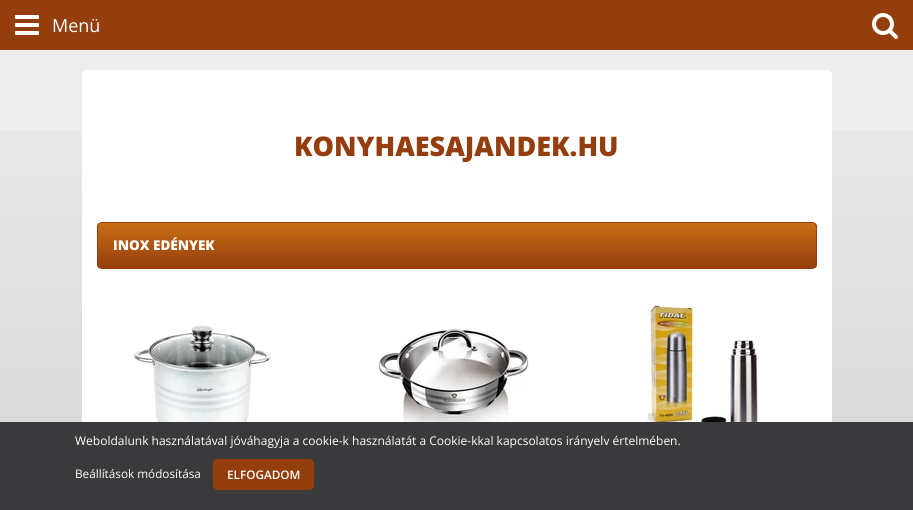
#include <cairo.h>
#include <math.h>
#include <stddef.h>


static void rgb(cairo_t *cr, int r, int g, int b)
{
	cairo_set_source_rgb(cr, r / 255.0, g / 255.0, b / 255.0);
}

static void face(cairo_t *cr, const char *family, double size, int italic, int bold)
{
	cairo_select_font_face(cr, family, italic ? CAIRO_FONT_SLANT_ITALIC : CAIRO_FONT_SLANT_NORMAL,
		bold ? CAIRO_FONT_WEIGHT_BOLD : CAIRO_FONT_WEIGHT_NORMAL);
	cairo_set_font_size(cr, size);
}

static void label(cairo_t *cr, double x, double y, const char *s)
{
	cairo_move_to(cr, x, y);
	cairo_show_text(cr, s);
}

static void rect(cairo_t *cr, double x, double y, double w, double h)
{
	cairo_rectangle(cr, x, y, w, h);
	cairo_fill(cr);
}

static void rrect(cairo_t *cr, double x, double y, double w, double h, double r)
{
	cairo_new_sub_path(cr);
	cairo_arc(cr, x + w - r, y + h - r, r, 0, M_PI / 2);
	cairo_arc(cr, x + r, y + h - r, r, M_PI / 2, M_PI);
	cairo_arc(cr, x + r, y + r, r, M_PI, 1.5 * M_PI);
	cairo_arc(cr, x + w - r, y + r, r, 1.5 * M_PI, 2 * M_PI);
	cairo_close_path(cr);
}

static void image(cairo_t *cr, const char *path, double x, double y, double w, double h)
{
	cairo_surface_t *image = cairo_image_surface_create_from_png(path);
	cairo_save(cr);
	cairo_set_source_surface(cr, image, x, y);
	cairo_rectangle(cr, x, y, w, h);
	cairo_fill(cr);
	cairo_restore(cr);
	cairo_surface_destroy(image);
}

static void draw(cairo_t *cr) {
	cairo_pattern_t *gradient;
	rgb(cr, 237, 237, 237);
	cairo_paint(cr);
	image(cr, "image0.png", 0, 131, 913, 291);
	rgb(cr, 148, 62, 13);
	rect(cr, 0, 0, 913, 50);
	image(cr, "image1.png", 15, 15, 24, 20);
	face(cr, "Open Sans", 18, 0, 0);
	rgb(cr, 255, 255, 255);
	label(cr, 52, 32, "Menü");
	image(cr, "image2.png", 872, 13, 26, 26);
	cairo_new_path(cr);
	cairo_move_to(cr, 87, 70);
	cairo_line_to(cr, 827, 70);
	cairo_curve_to(cr, 830, 70, 832, 72, 832, 75);
	cairo_line_to(cr, 832, 202);
	cairo_line_to(cr, 82, 202);
	cairo_line_to(cr, 82, 75);
	cairo_curve_to(cr, 82, 72, 84, 70, 87, 70);
	cairo_close_path(cr);
	cairo_fill(cr);
	face(cr, "Open Sans ExtraBold", 27, 0, 0);
	rgb(cr, 148, 62, 13);
	label(cr, 294, 156, "KONYHAESAJANDEK.HU");
	rgb(cr, 255, 255, 255);
	rect(cr, 82, 202, 750, 220);
	cairo_save(cr);
	rrect(cr, 97, 222, 720, 47, 5);
	cairo_clip(cr);
	gradient = cairo_pattern_create_linear(457, 223, 457, 268);
	cairo_pattern_add_color_stop_rgba(gradient, 0, 0.788, 0.431, 0.082, 1);
	cairo_pattern_add_color_stop_rgba(gradient, 1, 0.58, 0.243, 0.051, 1);
	cairo_set_source(cr, gradient);
	cairo_pattern_destroy(gradient);
	rect(cr, 97, 223, 720, 45);
	cairo_restore(cr);
	rrect(cr, 97.5, 222.5, 719, 46, 4.5);
	rgb(cr, 148, 62, 13);
	cairo_set_line_width(cr, 1);
	cairo_stroke(cr);
	face(cr, "Open Sans ExtraBold", 13.5, 0, 0);
	rgb(cr, 255, 255, 255);
	label(cr, 113, 250, "INOX EDÉNYEK");
	image(cr, "image3.png", 133, 325, 138, 97);
	image(cr, "image4.png", 379, 328, 150, 94);
	image(cr, "image5.png", 647, 302, 114, 120);
	rgb(cr, 58, 57, 59);
	rect(cr, 0, 422, 913, 88);
	face(cr, "Open Sans", 12, 0, 0);
	rgb(cr, 255, 255, 255);
	label(cr, 75, 445, "Weboldalunk használatával jóváhagyja a cookie-k használatát a Cookie-kkal kapcsolatos irányelv értelmében.");
	face(cr, "Open Sans", 11.75, 0, 0);
	label(cr, 75, 478, "Beállítások módosítása");
	rgb(cr, 148, 62, 13);
	rrect(cr, 214, 460, 99, 29, 4);
	cairo_fill_preserve(cr);
	cairo_set_line_width(cr, 2);
	cairo_stroke(cr);
	face(cr, "Open Sans SemiBold", 11.75, 0, 0);
	rgb(cr, 255, 255, 255);
	label(cr, 227, 479, "ELFOGADOM");
}

int main(void) {
	cairo_surface_t *surface = cairo_image_surface_create(CAIRO_FORMAT_RGB24, 913, 510);
	cairo_t *cr = cairo_create(surface);
	cairo_font_options_t *options = cairo_font_options_create();
	cairo_font_options_set_hint_metrics(options, CAIRO_HINT_METRICS_OFF);
	cairo_font_options_set_hint_style(options, CAIRO_HINT_STYLE_NONE);
	cairo_set_font_options(cr, options);
	cairo_set_miter_limit(cr, 4);
	draw(cr);
	cairo_surface_write_to_png(surface, "render.png");
	cairo_font_options_destroy(options);
	cairo_destroy(cr);
	cairo_surface_destroy(surface);
	return 0;
}
